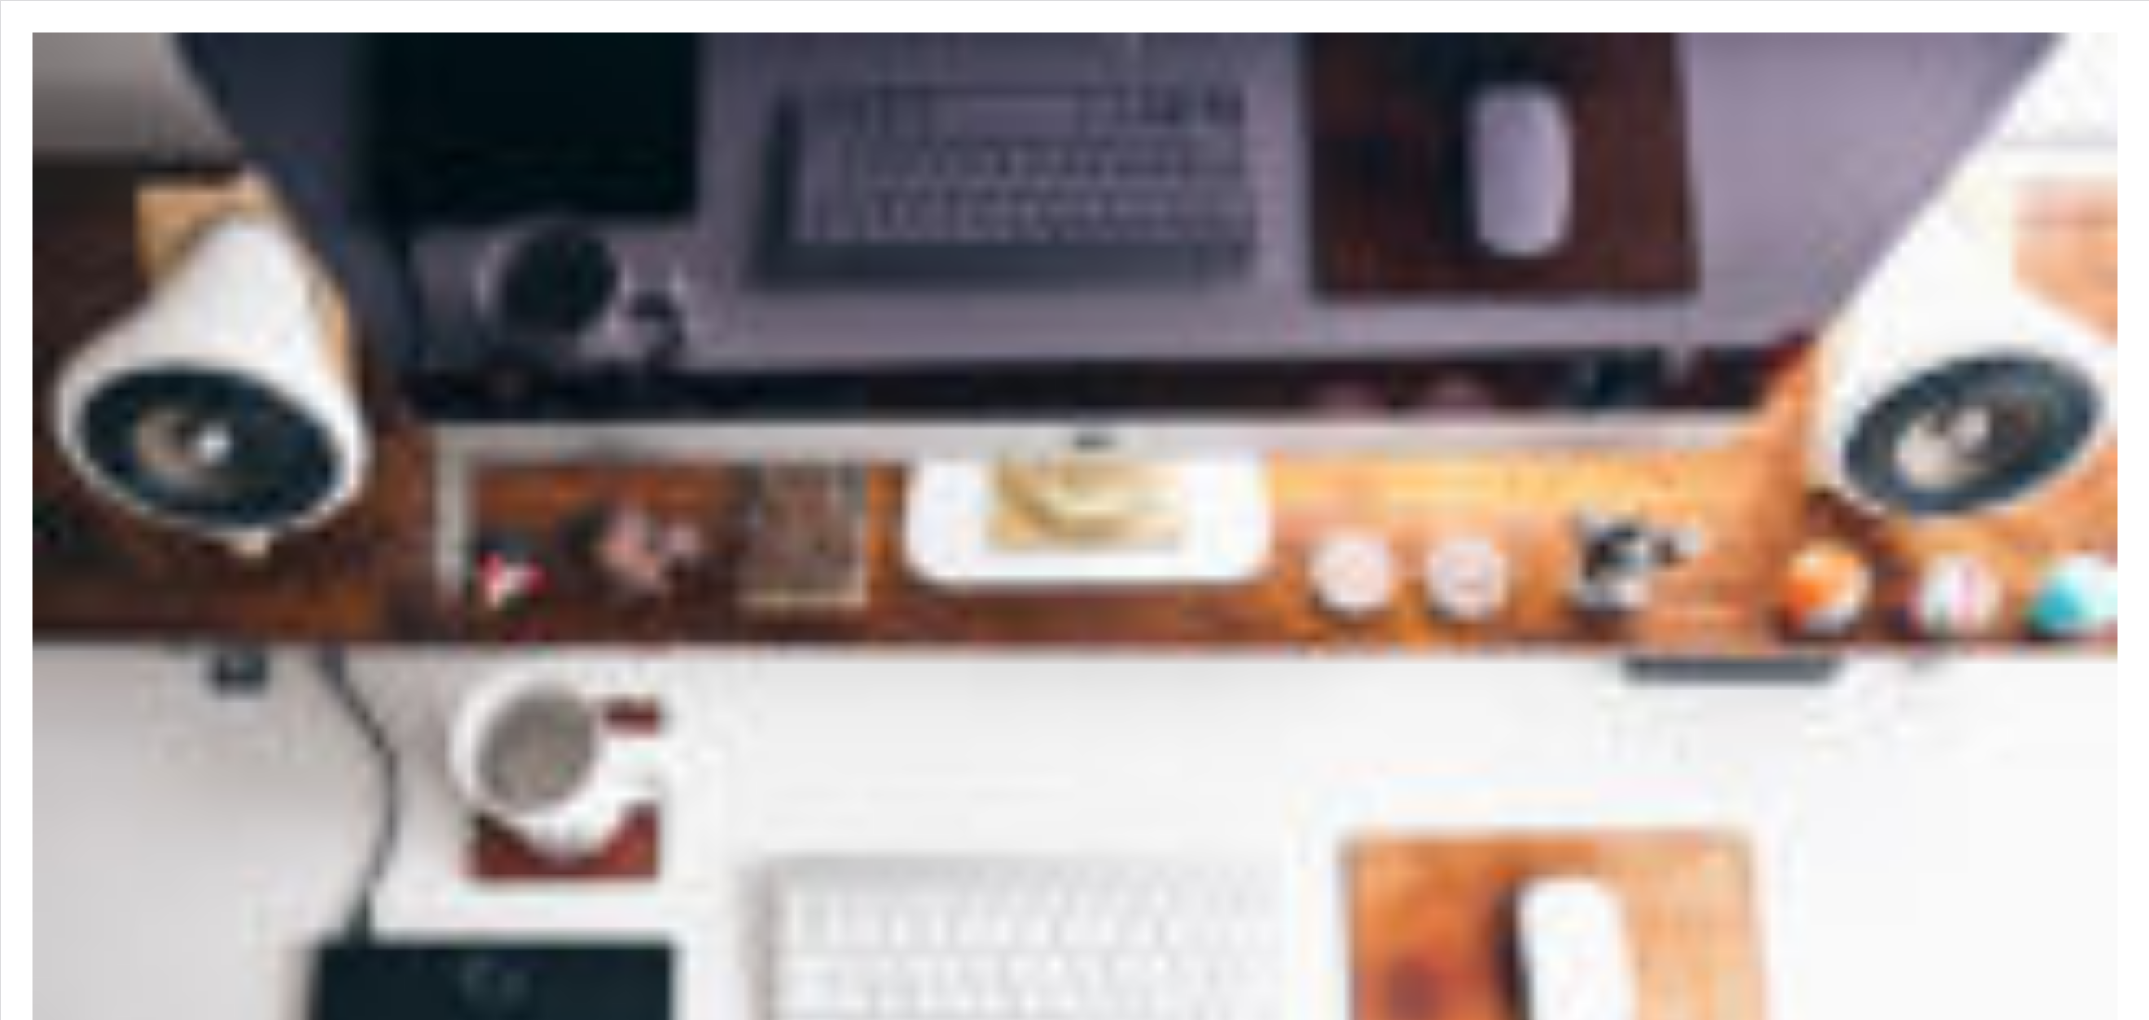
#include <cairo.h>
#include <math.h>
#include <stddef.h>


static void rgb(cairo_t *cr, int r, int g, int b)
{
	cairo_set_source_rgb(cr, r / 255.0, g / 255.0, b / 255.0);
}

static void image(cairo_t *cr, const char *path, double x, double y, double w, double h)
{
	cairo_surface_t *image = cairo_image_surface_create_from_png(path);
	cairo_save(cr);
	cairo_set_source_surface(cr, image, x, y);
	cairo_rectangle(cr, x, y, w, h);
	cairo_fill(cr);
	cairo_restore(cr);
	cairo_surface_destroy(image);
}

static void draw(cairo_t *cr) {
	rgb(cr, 255, 255, 255);
	cairo_paint(cr);
	cairo_rectangle(cr, 0.5, 0.5, 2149, 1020);
	rgb(cr, 220, 220, 222);
	cairo_set_line_width(cr, 1);
	cairo_stroke(cr);
	image(cr, "image0.png", 32, 32, 2086, 988);
}

int main(void) {
	cairo_surface_t *surface = cairo_image_surface_create(CAIRO_FORMAT_RGB24, 2149, 1020);
	cairo_t *cr = cairo_create(surface);
	cairo_font_options_t *options = cairo_font_options_create();
	cairo_font_options_set_hint_metrics(options, CAIRO_HINT_METRICS_OFF);
	cairo_font_options_set_hint_style(options, CAIRO_HINT_STYLE_NONE);
	cairo_set_font_options(cr, options);
	cairo_set_miter_limit(cr, 4);
	draw(cr);
	cairo_surface_write_to_png(surface, "render.png");
	cairo_font_options_destroy(options);
	cairo_destroy(cr);
	cairo_surface_destroy(surface);
	return 0;
}
